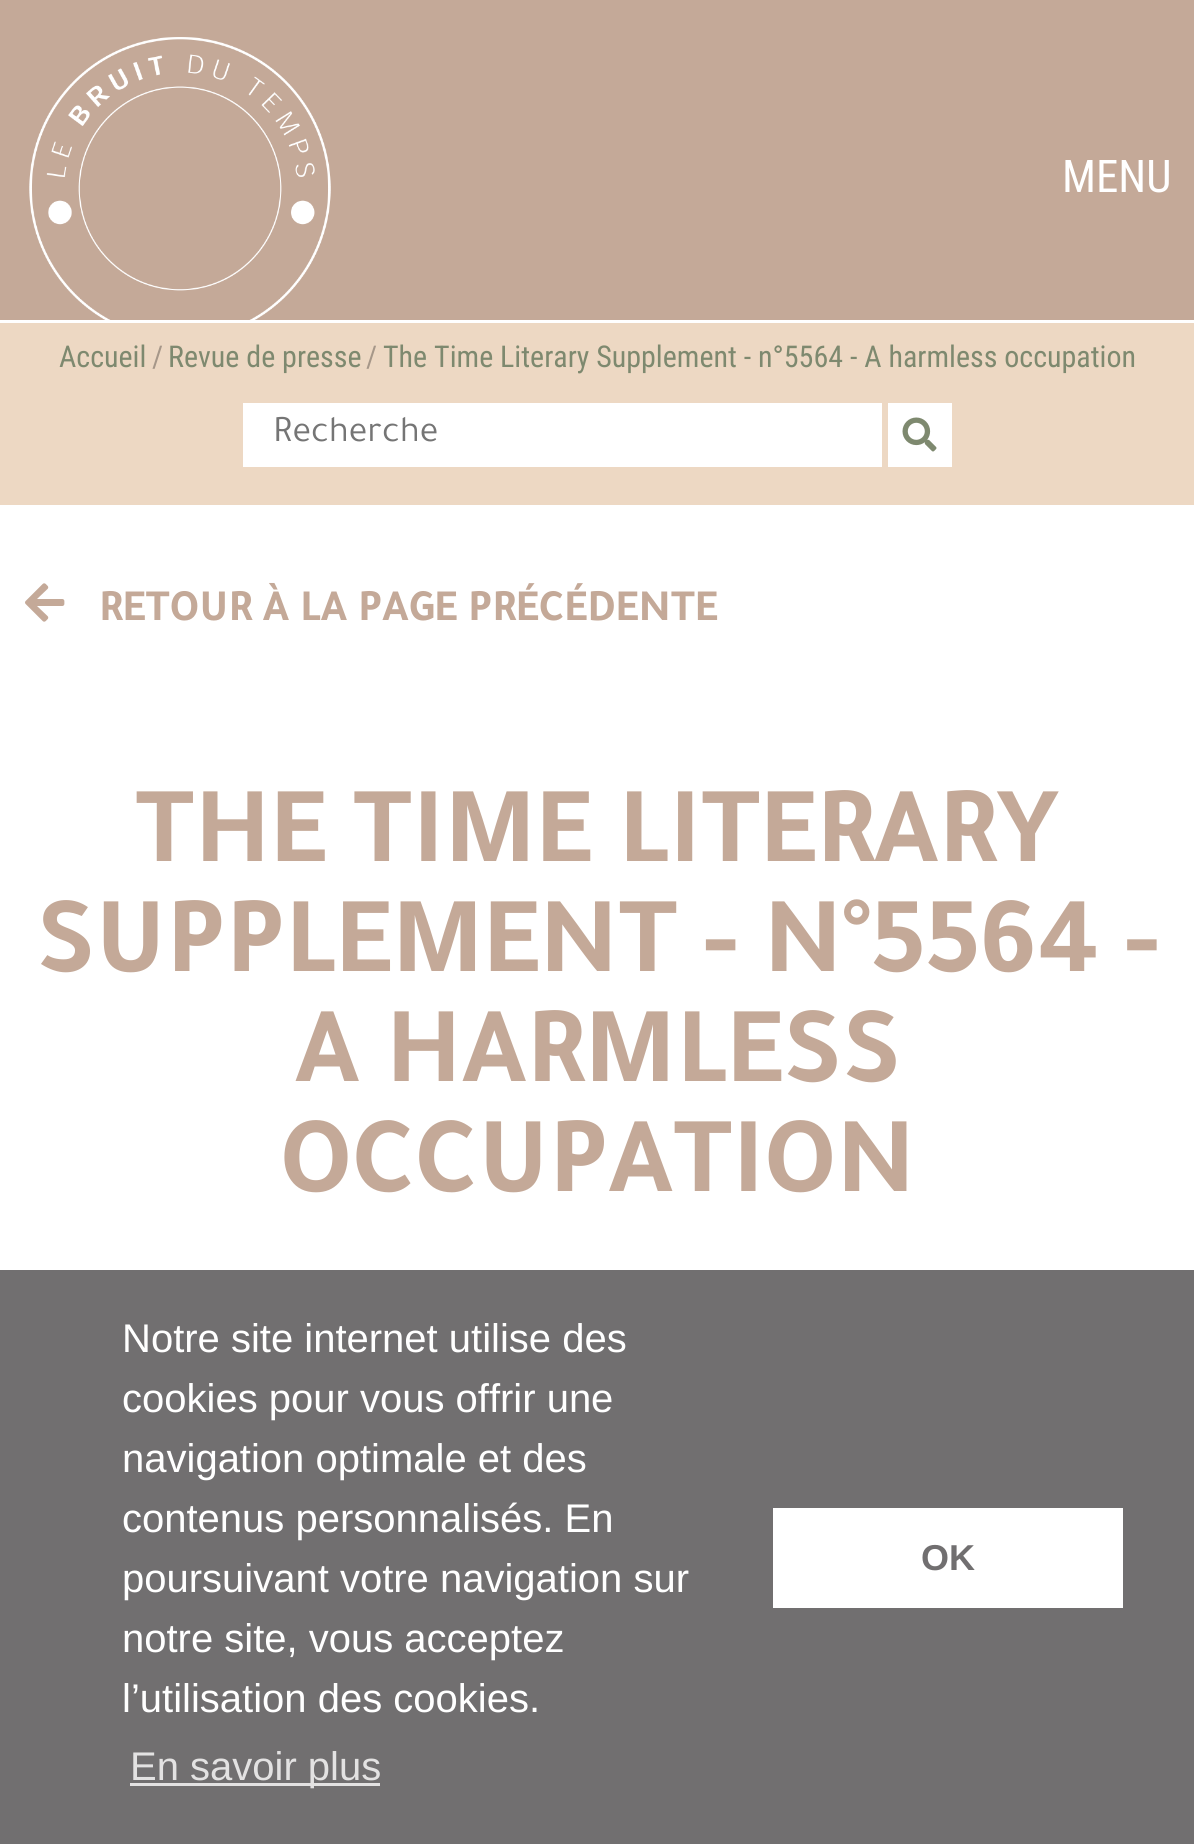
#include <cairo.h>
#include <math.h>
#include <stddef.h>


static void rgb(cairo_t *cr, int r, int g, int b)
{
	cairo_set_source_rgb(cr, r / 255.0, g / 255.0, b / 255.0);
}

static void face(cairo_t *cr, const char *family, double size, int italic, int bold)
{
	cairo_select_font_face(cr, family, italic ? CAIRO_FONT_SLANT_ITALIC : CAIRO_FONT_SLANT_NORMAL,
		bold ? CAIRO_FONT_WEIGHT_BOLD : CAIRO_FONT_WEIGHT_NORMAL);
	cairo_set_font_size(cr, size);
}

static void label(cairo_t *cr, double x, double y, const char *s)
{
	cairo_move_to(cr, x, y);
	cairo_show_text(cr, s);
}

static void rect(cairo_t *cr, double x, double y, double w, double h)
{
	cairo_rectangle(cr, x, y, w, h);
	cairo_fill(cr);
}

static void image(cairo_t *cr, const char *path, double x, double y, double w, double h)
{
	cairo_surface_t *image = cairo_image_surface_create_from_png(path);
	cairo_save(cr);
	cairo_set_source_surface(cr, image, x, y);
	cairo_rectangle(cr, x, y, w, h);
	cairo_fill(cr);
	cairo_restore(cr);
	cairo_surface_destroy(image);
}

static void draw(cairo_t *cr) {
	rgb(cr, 255, 255, 255);
	cairo_paint(cr);
	rgb(cr, 196, 169, 152);
	rect(cr, 0, 0, 1194, 320);
	image(cr, "image0.png", 29, 37, 302, 283);
	face(cr, "Roboto Condensed", 45, 0, 0);
	rgb(cr, 255, 255, 255);
	label(cr, 1062, 192, "MENU");
	rgb(cr, 237, 216, 195);
	rect(cr, 0, 323, 1194, 182);
	face(cr, "Roboto Condensed", 30, 0, 0);
	rgb(cr, 126, 137, 111);
	label(cr, 59, 367, "Accueil");
	rgb(cr, 166, 151, 137);
	label(cr, 152, 367, "/");
	rgb(cr, 126, 137, 111);
	label(cr, 168, 367, "Revue de presse");
	rgb(cr, 166, 151, 137);
	label(cr, 366, 367, "/");
	rgb(cr, 126, 137, 111);
	label(cr, 383, 367, "The Time Literary Supplement - n°5564 - A harmless occupation");
	rgb(cr, 255, 255, 255);
	rect(cr, 243, 403, 639, 64);
	face(cr, "Tajawal", 37.5, 0, 0);
	rgb(cr, 117, 117, 117);
	label(cr, 273, 441, "Recherche");
	rgb(cr, 255, 255, 255);
	rect(cr, 888, 403, 64, 64);
	image(cr, "image1.png", 902, 417, 35, 35);
	image(cr, "image2.png", 25, 583, 40, 39);
	face(cr, "Tajawal", 45, 0, 1);
	rgb(cr, 196, 169, 152);
	label(cr, 99, 620, "RETOUR À LA PAGE PRÉCÉDENTE");
	face(cr, "Tajawal", 110, 0, 1);
	label(cr, 135, 861, "THE TIME LITERARY");
	label(cr, 36, 971, "SUPPLEMENT - N°5564 -");
	label(cr, 295, 1081, "A HARMLESS");
	label(cr, 280, 1191, "OCCUPATION");
	rgb(cr, 113, 111, 112);
	rect(cr, 0, 1270, 1194, 574);
	face(cr, "Liberation Sans", 40, 0, 0);
	rgb(cr, 255, 255, 255);
	label(cr, 122, 1352, "Notre site internet utilise des");
	label(cr, 122, 1412, "cookies pour vous offrir une");
	label(cr, 122, 1472, "navigation optimale et des");
	label(cr, 122, 1532, "contenus personnalisés. En");
	label(cr, 122, 1592, "poursuivant votre navigation sur");
	label(cr, 122, 1652, "notre site, vous acceptez");
	label(cr, 122, 1712, "l’utilisation des cookies.");
	rgb(cr, 227, 226, 226);
	rect(cr, 130, 1783, 250, 3);
	label(cr, 130, 1780, "En savoir plus");
	rgb(cr, 255, 255, 255);
	rect(cr, 773, 1508, 350, 100);
	face(cr, "Liberation Sans", 36, 0, 1);
	rgb(cr, 113, 111, 112);
	label(cr, 921, 1570, "OK");
}

int main(void) {
	cairo_surface_t *surface = cairo_image_surface_create(CAIRO_FORMAT_RGB24, 1194, 1844);
	cairo_t *cr = cairo_create(surface);
	cairo_font_options_t *options = cairo_font_options_create();
	cairo_font_options_set_hint_metrics(options, CAIRO_HINT_METRICS_OFF);
	cairo_font_options_set_hint_style(options, CAIRO_HINT_STYLE_NONE);
	cairo_set_font_options(cr, options);
	cairo_set_miter_limit(cr, 4);
	draw(cr);
	cairo_surface_write_to_png(surface, "render.png");
	cairo_font_options_destroy(options);
	cairo_destroy(cr);
	cairo_surface_destroy(surface);
	return 0;
}
